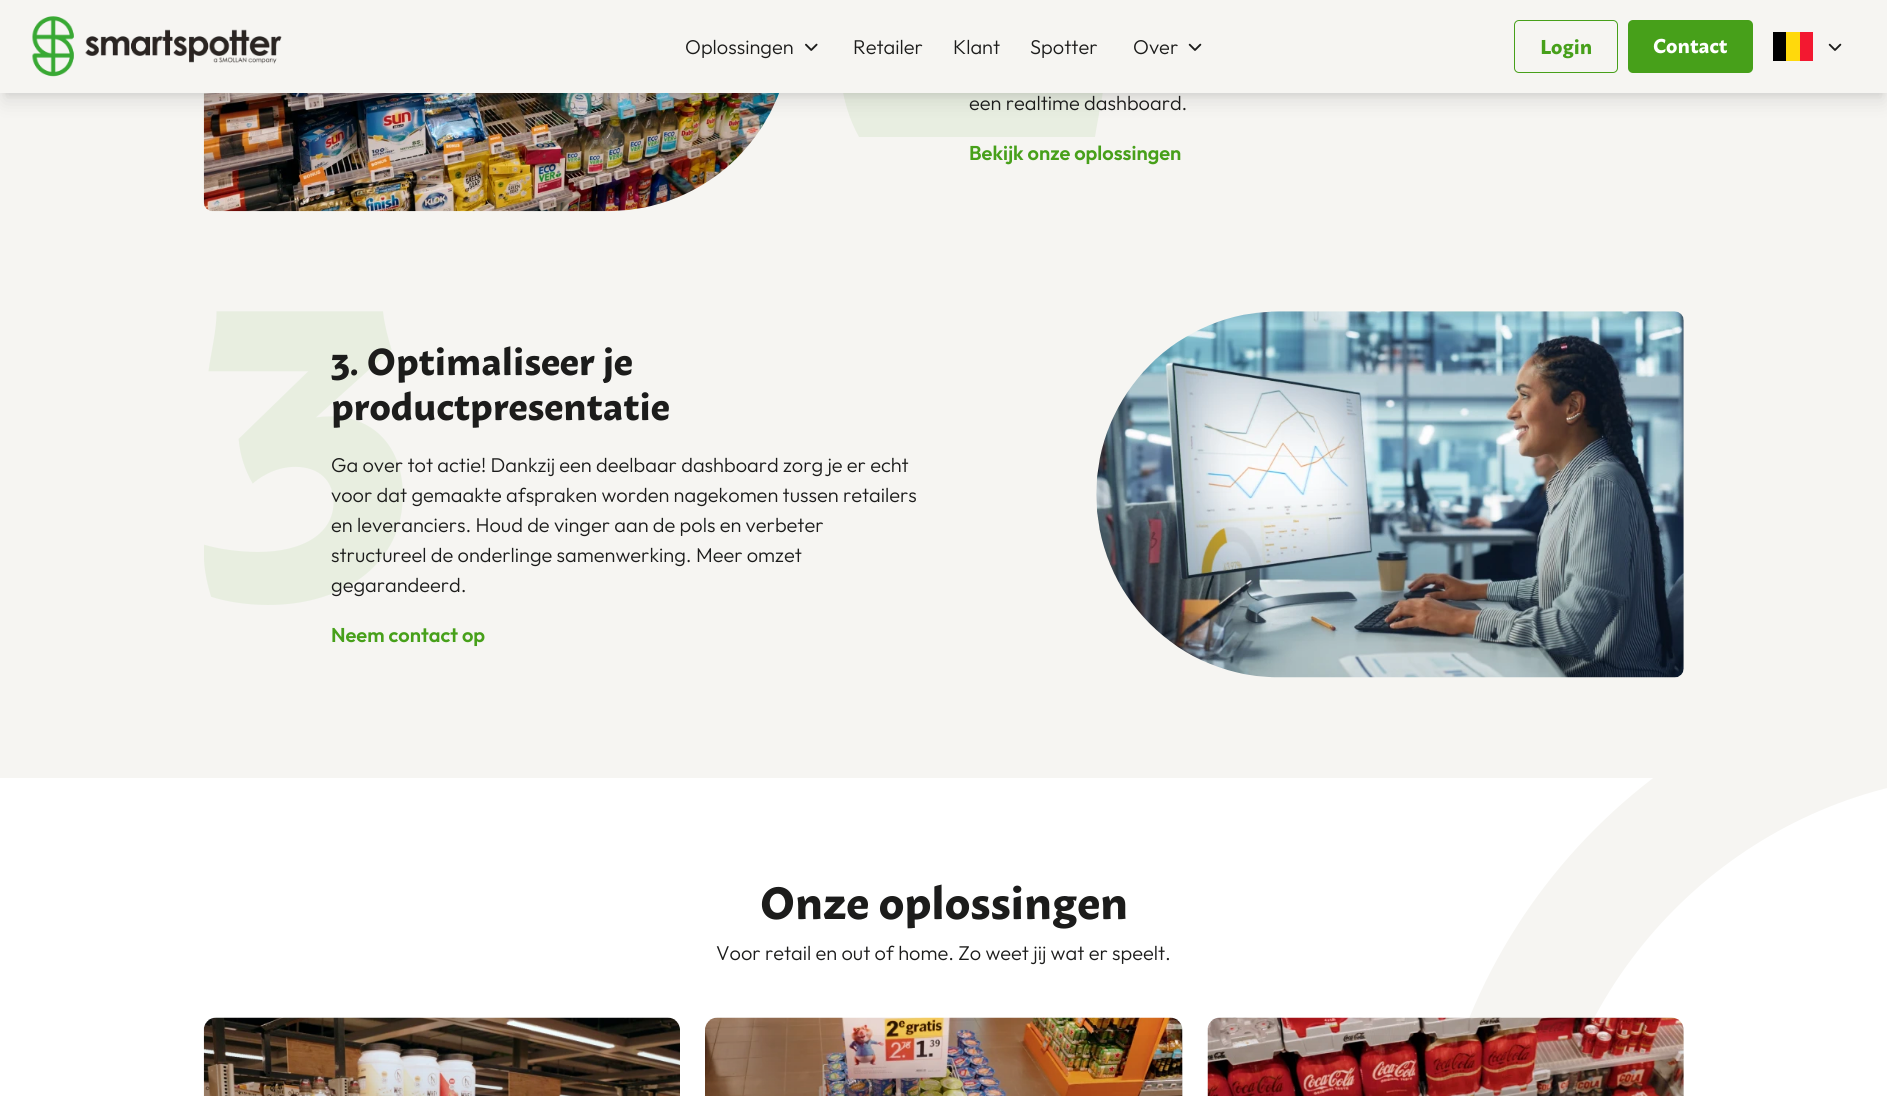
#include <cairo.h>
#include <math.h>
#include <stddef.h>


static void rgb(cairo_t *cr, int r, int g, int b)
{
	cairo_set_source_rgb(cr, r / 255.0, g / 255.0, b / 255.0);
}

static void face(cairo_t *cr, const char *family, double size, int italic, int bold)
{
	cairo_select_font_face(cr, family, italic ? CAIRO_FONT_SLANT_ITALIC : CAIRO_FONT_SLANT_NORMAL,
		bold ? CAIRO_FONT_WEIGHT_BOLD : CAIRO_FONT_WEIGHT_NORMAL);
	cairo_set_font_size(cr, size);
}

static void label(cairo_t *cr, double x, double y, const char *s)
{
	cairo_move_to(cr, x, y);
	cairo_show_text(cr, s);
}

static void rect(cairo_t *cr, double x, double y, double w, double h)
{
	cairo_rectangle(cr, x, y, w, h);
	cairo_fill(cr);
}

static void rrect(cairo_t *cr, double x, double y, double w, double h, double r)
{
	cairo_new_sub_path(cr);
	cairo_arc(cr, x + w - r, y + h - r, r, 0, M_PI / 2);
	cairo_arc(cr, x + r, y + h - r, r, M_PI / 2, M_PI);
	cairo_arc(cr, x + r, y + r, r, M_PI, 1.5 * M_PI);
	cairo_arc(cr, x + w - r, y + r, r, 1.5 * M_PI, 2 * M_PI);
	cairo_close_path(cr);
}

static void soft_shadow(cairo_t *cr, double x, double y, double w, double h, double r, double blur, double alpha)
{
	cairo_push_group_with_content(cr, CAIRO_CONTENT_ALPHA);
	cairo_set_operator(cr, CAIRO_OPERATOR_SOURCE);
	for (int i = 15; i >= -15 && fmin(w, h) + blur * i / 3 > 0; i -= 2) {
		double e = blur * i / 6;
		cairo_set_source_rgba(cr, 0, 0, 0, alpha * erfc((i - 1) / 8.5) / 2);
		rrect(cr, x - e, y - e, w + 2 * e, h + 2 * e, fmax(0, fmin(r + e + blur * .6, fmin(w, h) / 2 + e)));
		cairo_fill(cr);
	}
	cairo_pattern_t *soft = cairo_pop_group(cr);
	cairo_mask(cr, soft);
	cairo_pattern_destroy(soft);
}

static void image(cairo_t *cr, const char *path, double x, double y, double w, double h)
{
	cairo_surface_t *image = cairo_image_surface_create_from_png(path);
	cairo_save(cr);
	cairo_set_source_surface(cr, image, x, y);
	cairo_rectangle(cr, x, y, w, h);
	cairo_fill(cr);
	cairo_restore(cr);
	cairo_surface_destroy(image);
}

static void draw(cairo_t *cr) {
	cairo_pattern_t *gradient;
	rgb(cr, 246, 245, 242);
	cairo_paint(cr);
	rgb(cr, 232, 238, 225);
	cairo_new_path(cr);
	cairo_move_to(cr, 1106, 58);
	cairo_line_to(cr, 983, 58);
	cairo_curve_to(cr, 1028, 30, 1070, -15, 1070, -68);
	cairo_curve_to(cr, 1070, -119, 1034, -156, 963, -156);
	cairo_curve_to(cr, 910, -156, 867, -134, 851, -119);
	cairo_curve_to(cr, 852, -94, 855, -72, 860, -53);
	cairo_curve_to(cr, 873, -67, 902, -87, 937, -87);
	cairo_curve_to(cr, 967, -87, 985, -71, 985, -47);
	cairo_curve_to(cr, 985, 2, 903, 53, 841, 78);
	cairo_curve_to(cr, 843, 99, 849, 119, 859, 137);
	cairo_line_to(cr, 1095, 137);
	cairo_curve_to(cr, 1099, 111, 1106, 84, 1106, 58);
	cairo_close_path(cr);
	cairo_fill(cr);
	image(cr, "image3.png", 203, 93, 576, 119);
	rgb(cr, 0, 0, 0);
	soft_shadow(cr, 5, 10, 1878, 83, 0, 4, 0.1);
	soft_shadow(cr, 4, 16, 1880, 85, 0, 9.5, 0.1);
	rgb(cr, 246, 245, 242);
	rect(cr, 0, 0, 1887, 93);
	image(cr, "image0.png", 32, 16, 250, 61);
	face(cr, "Outfit Light", 20, 0, 0);
	rgb(cr, 28, 28, 27);
	label(cr, 685, 54, "Oplossingen");
	image(cr, "image1.png", 805, 43, 13, 8);
	label(cr, 853, 54, "Retailer");
	label(cr, 953, 54, "Klant");
	label(cr, 1030, 54, "Spotter");
	label(cr, 1133, 54, "Over");
	image(cr, "image2.png", 1188, 43, 14, 8);
	rrect(cr, 1514.5, 20.5, 103, 52, 4.5);
	rgb(cr, 71, 160, 26);
	cairo_set_line_width(cr, 1);
	cairo_stroke(cr);
	face(cr, "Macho", 20, 0, 1);
	label(cr, 1540, 54, "Login");
	rrect(cr, 1628, 20, 125, 53, 5);
	cairo_fill(cr);
	rgb(cr, 255, 255, 255);
	label(cr, 1653, 53, "Contact");
	rgb(cr, 0, 0, 1);
	rect(cr, 1773, 32, 13, 29);
	rgb(cr, 255, 217, 12);
	rect(cr, 1786, 32, 14, 29);
	rgb(cr, 243, 24, 48);
	rect(cr, 1800, 32, 13, 29);
	image(cr, "image2.png", 1828, 43, 14, 8);
	face(cr, "Outfit Light", 20, 0, 0);
	rgb(cr, 28, 28, 27);
	label(cr, 969, 110, "een realtime dashboard.");
	face(cr, "Outfit SemiBold", 20, 0, 0);
	rgb(cr, 71, 160, 26);
	label(cr, 969, 160, "Bekijk onze oplossingen");
	image(cr, "image4.png", 204, 311, 199, 294);
	face(cr, "Macho", 37.5, 0, 1);
	rgb(cr, 28, 28, 27);
	label(cr, 331, 375, "3. Optimaliseer je");
	label(cr, 331, 420, "productpresentatie");
	face(cr, "Outfit Light", 20, 0, 0);
	label(cr, 331, 472, "Ga over tot actie! Dankzij een deelbaar dashboard zorg je er echt");
	label(cr, 331, 502, "voor dat gemaakte afspraken worden nagekomen tussen retailers");
	label(cr, 331, 532, "en leveranciers. Houd de vinger aan de pols en verbeter");
	label(cr, 331, 562, "structureel de onderlinge samenwerking. Meer omzet");
	label(cr, 331, 592, "gegarandeerd.");
	face(cr, "Outfit SemiBold", 20, 0, 0);
	rgb(cr, 71, 160, 26);
	label(cr, 331, 642, "Neem contact op");
	image(cr, "image5.png", 1096, 311, 588, 367);
	rgb(cr, 255, 255, 255);
	rect(cr, 0, 778, 1887, 318);
	face(cr, "Macho", 45, 0, 1);
	rgb(cr, 28, 28, 27);
	label(cr, 760, 919, "Onze oplossingen");
	face(cr, "Outfit Light", 20, 0, 0);
	label(cr, 716, 960, "Voor retail en out of home. Zo weet jij wat er speelt.");
	image(cr, "image6.png", 203, 1017, 477, 79);
	gradient = cairo_pattern_create_linear(442, 1018, 442, 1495);
	cairo_pattern_add_color_stop_rgba(gradient, 0, 0, 0, 0, 0);
	cairo_pattern_add_color_stop_rgba(gradient, 1, 0, 0, 0, 0.6);
	cairo_set_source(cr, gradient);
	cairo_pattern_destroy(gradient);
	rect(cr, 204, 1035, 476, 61);
	image(cr, "image7.png", 705, 1017, 478, 79);
	gradient = cairo_pattern_create_linear(944, 1018, 944, 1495);
	cairo_pattern_add_color_stop_rgba(gradient, 0, 0, 0, 0, 0);
	cairo_pattern_add_color_stop_rgba(gradient, 1, 0, 0, 0, 0.6);
	cairo_set_source(cr, gradient);
	cairo_pattern_destroy(gradient);
	rect(cr, 705, 1035, 478, 61);
	image(cr, "image9.png", 1469, 778, 418, 240);
	image(cr, "image8.png", 1207, 1017, 477, 79);
	gradient = cairo_pattern_create_linear(1446, 1018, 1446, 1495);
	cairo_pattern_add_color_stop_rgba(gradient, 0, 0, 0, 0, 0);
	cairo_pattern_add_color_stop_rgba(gradient, 1, 0, 0, 0, 0.6);
	cairo_set_source(cr, gradient);
	cairo_pattern_destroy(gradient);
	rect(cr, 1208, 1035, 476, 61);
}

int main(void) {
	cairo_surface_t *surface = cairo_image_surface_create(CAIRO_FORMAT_RGB24, 1887, 1096);
	cairo_t *cr = cairo_create(surface);
	cairo_font_options_t *options = cairo_font_options_create();
	cairo_font_options_set_hint_metrics(options, CAIRO_HINT_METRICS_OFF);
	cairo_font_options_set_hint_style(options, CAIRO_HINT_STYLE_NONE);
	cairo_set_font_options(cr, options);
	cairo_set_miter_limit(cr, 4);
	draw(cr);
	cairo_surface_write_to_png(surface, "render.png");
	cairo_font_options_destroy(options);
	cairo_destroy(cr);
	cairo_surface_destroy(surface);
	return 0;
}
